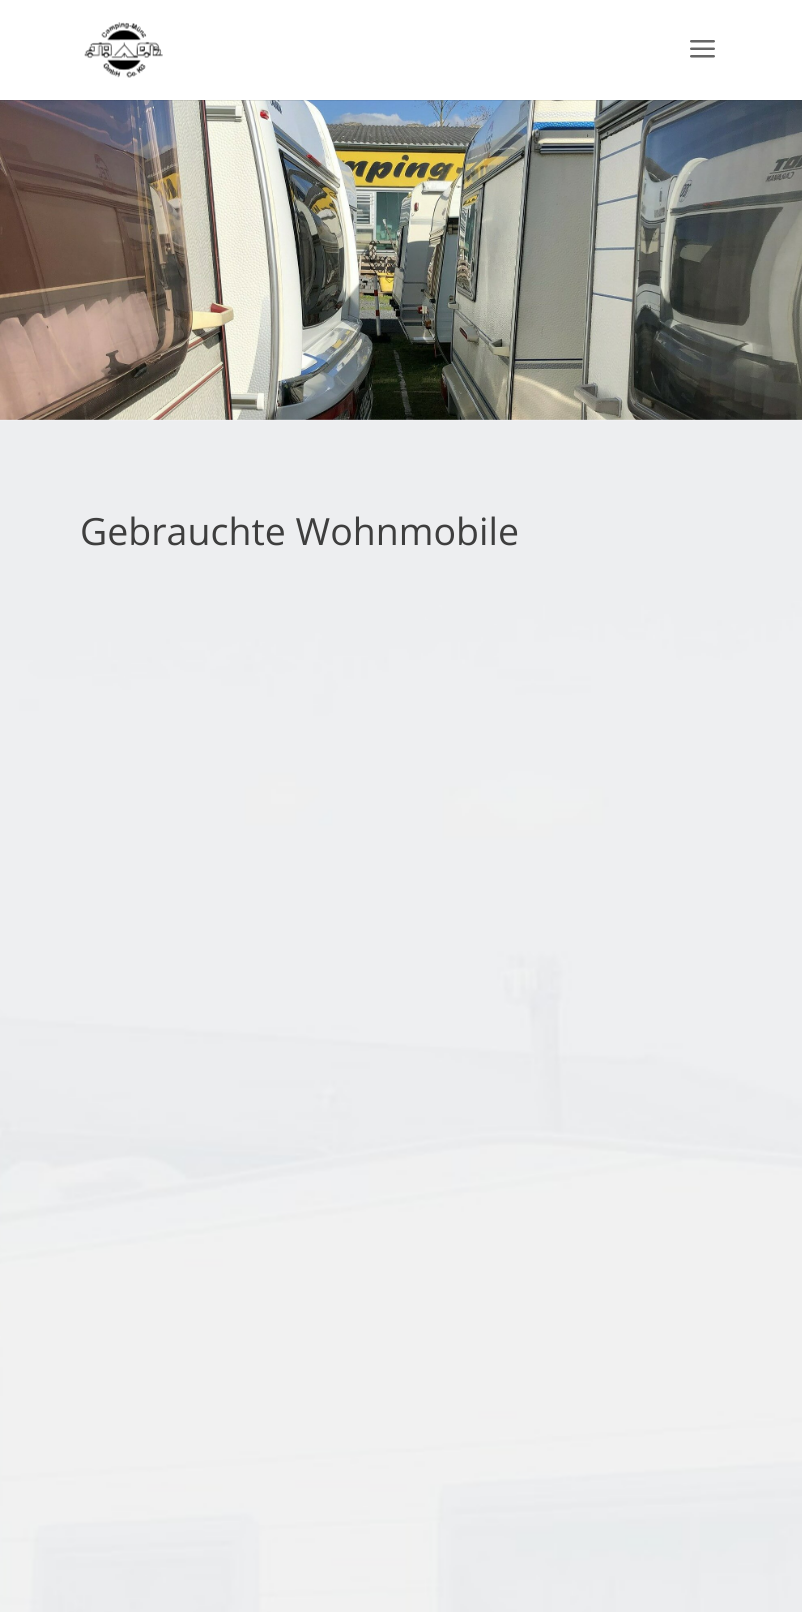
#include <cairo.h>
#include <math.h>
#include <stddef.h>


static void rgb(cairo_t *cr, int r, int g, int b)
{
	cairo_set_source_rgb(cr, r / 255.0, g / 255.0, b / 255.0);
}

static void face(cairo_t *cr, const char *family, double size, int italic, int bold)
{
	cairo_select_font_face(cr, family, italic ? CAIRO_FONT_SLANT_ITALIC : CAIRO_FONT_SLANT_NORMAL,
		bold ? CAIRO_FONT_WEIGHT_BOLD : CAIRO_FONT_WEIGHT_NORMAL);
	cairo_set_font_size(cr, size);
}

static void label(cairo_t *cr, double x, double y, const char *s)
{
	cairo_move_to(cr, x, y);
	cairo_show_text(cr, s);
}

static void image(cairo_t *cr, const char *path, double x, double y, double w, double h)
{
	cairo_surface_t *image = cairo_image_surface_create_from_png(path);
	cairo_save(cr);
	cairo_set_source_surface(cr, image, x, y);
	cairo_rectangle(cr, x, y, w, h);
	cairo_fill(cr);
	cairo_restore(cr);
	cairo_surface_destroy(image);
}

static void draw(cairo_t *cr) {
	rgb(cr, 255, 255, 255);
	cairo_paint(cr);
	image(cr, "image2.png", 0, 100, 802, 320);
	cairo_set_source_rgba(cr, 0, 0, 0, 0.1);
	cairo_new_path(cr);
	cairo_move_to(cr, 0, 100);
	cairo_line_to(cr, 0, 101);
	cairo_line_to(cr, 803, 101);
	cairo_line_to(cr, 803, 1);
	cairo_line_to(cr, 802, 1);
	cairo_line_to(cr, 802, 100);
	cairo_close_path(cr);
	cairo_fill(cr);
	image(cr, "image0.png", 84, 22, 79, 56);
	image(cr, "image1.png", 690, 40, 25, 18);
	image(cr, "image3.png", 0, 419, 802, 1193);
	face(cr, "Open Sans", 37.5, 0, 0);
	rgb(cr, 62, 62, 62);
	label(cr, 80, 545, "Gebrauchte Wohnmobile");
}

int main(void) {
	cairo_surface_t *surface = cairo_image_surface_create(CAIRO_FORMAT_RGB24, 802, 1612);
	cairo_t *cr = cairo_create(surface);
	cairo_font_options_t *options = cairo_font_options_create();
	cairo_font_options_set_hint_metrics(options, CAIRO_HINT_METRICS_OFF);
	cairo_font_options_set_hint_style(options, CAIRO_HINT_STYLE_NONE);
	cairo_set_font_options(cr, options);
	cairo_set_miter_limit(cr, 4);
	draw(cr);
	cairo_surface_write_to_png(surface, "render.png");
	cairo_font_options_destroy(options);
	cairo_destroy(cr);
	cairo_surface_destroy(surface);
	return 0;
}
